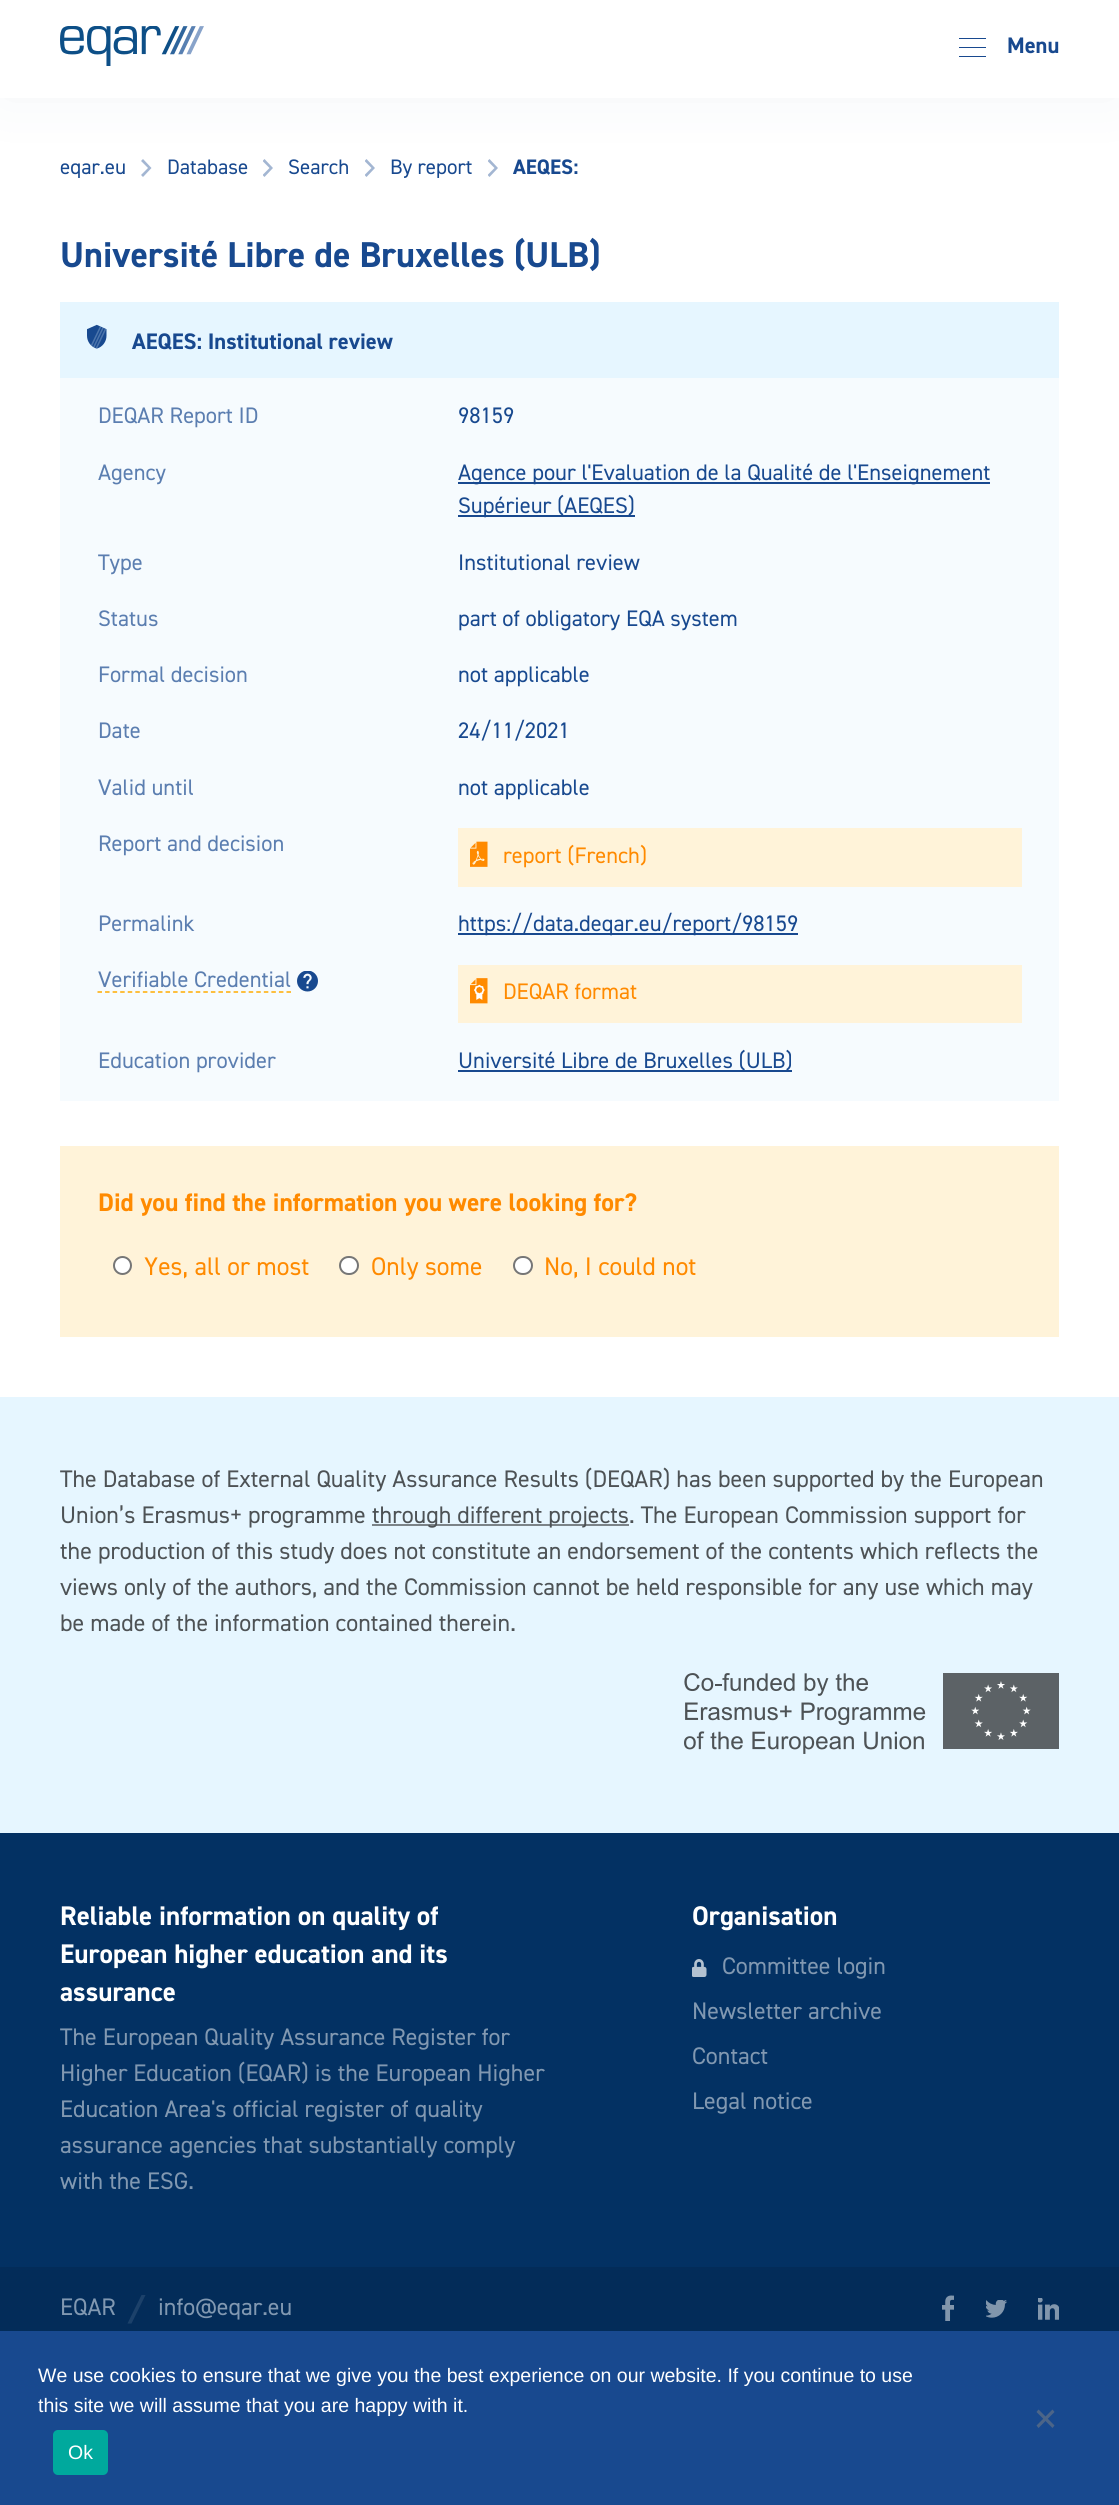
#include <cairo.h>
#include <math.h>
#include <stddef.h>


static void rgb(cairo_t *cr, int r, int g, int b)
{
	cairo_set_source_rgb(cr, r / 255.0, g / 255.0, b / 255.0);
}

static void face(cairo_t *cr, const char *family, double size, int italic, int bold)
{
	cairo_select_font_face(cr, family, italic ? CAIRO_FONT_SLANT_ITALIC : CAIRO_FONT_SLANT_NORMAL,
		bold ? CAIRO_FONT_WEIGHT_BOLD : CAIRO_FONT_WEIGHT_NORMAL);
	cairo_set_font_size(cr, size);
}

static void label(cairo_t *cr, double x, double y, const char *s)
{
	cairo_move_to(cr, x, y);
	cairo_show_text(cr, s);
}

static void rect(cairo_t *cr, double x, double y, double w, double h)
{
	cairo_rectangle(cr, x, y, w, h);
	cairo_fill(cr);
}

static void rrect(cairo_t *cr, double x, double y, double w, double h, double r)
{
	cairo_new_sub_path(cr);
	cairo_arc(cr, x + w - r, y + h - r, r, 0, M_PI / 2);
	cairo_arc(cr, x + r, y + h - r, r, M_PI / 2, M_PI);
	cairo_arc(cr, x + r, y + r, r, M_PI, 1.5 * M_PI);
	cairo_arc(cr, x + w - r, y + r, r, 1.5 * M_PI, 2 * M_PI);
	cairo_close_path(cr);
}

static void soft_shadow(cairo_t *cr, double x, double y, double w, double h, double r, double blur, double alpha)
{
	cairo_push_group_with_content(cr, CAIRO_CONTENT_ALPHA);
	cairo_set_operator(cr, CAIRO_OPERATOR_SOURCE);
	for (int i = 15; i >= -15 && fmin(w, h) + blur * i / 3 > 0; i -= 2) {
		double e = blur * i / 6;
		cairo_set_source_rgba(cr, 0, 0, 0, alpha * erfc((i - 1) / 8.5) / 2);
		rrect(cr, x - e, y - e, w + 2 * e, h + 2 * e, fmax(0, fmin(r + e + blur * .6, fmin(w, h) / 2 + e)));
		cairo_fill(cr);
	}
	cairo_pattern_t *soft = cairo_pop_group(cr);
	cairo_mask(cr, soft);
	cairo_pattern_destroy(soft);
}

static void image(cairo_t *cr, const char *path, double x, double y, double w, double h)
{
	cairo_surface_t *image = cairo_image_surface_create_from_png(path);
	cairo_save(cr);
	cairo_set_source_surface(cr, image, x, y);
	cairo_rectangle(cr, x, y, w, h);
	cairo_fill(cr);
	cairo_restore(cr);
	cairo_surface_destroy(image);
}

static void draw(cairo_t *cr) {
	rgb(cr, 255, 255, 255);
	cairo_paint(cr);
	rgb(cr, 3, 49, 99);
	soft_shadow(cr, 0, 0, 1119, 98, 0, 30, 0.05);
	rgb(cr, 255, 255, 255);
	rect(cr, 0, 0, 1119, 98);
	image(cr, "image0.png", 60, 26, 144, 40);
	rgb(cr, 24, 73, 143);
	rect(cr, 959, 38, 27, 1);
	rect(cr, 959, 47, 27, 1);
	rect(cr, 959, 56, 27, 1);
	face(cr, "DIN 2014", 22.5, 0, 0);
	label(cr, 1007, 53, "Menu");
	face(cr, "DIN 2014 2", 21, 0, 0);
	label(cr, 60, 174, "eqar.eu");
	rgb(cr, 163, 182, 210);
	cairo_new_path(cr);
	cairo_move_to(cr, 141, 161);
	cairo_line_to(cr, 143, 159);
	cairo_line_to(cr, 151.5, 168);
	cairo_line_to(cr, 143, 177);
	cairo_line_to(cr, 141, 175);
	cairo_line_to(cr, 148, 168);
	cairo_close_path(cr);
	cairo_fill(cr);
	rgb(cr, 24, 73, 143);
	label(cr, 167, 174, "Database");
	cairo_save(cr);
	cairo_rectangle(cr, 263, 159, 10, 18);
	cairo_clip(cr);
	rgb(cr, 163, 182, 210);
	cairo_new_path(cr);
	cairo_move_to(cr, 262.5, 161);
	cairo_line_to(cr, 264.5, 159);
	cairo_line_to(cr, 273, 168);
	cairo_line_to(cr, 264.5, 177);
	cairo_line_to(cr, 262.5, 175);
	cairo_line_to(cr, 269.5, 168);
	cairo_close_path(cr);
	cairo_fill(cr);
	cairo_restore(cr);
	label(cr, 288, 174, "Search");
	cairo_save(cr);
	cairo_rectangle(cr, 365, 159, 10, 18);
	cairo_clip(cr);
	rgb(cr, 163, 182, 210);
	cairo_new_path(cr);
	cairo_move_to(cr, 364.5, 161);
	cairo_line_to(cr, 366.5, 159);
	cairo_line_to(cr, 375, 168);
	cairo_line_to(cr, 366.5, 177);
	cairo_line_to(cr, 364.5, 175);
	cairo_line_to(cr, 371.5, 168);
	cairo_close_path(cr);
	cairo_fill(cr);
	cairo_restore(cr);
	label(cr, 390, 174, "By report");
	cairo_save(cr);
	cairo_rectangle(cr, 488, 159, 10, 18);
	cairo_clip(cr);
	rgb(cr, 163, 182, 210);
	cairo_new_path(cr);
	cairo_move_to(cr, 487.5, 161);
	cairo_line_to(cr, 489.5, 159);
	cairo_line_to(cr, 498, 168);
	cairo_line_to(cr, 489.5, 177);
	cairo_line_to(cr, 487.5, 175);
	cairo_line_to(cr, 494.5, 168);
	cairo_close_path(cr);
	cairo_fill(cr);
	cairo_restore(cr);
	face(cr, "DIN 2014", 21, 0, 0);
	label(cr, 513, 174, "AEQES:");
	face(cr, "DIN 2014", 36, 0, 0);
	label(cr, 60, 267, "Université Libre de Bruxelles (ULB)");
	rgb(cr, 230, 246, 255);
	rect(cr, 60, 302, 999, 76);
	image(cr, "image1.png", 87, 324, 20, 25);
	face(cr, "DIN 2014", 22.5, 0, 0);
	rgb(cr, 24, 73, 143);
	label(cr, 132, 349, "AEQES: Institutional review");
	rgb(cr, 246, 251, 254);
	rect(cr, 60, 378, 999, 723);
	face(cr, "DIN 2014 2", 22.5, 0, 0);
	rgb(cr, 91, 126, 176);
	label(cr, 98, 423, "DEQAR Report ID");
	rgb(cr, 24, 73, 143);
	label(cr, 458, 423, "98159");
	rgb(cr, 91, 126, 176);
	label(cr, 98, 480, "Agency");
	rgb(cr, 24, 73, 143);
	rect(cr, 458, 482, 532, 2);
	label(cr, 458, 480, "Agence pour l'Evaluation de la Qualité de l'Enseignement");
	rect(cr, 458, 515, 177, 2);
	label(cr, 458, 513, "Supérieur (AEQES)");
	rgb(cr, 91, 126, 176);
	label(cr, 98, 570, "Type");
	rgb(cr, 24, 73, 143);
	label(cr, 458, 570, "Institutional review");
	rgb(cr, 91, 126, 176);
	label(cr, 98, 626, "Status");
	rgb(cr, 24, 73, 143);
	label(cr, 458, 626, "part of obligatory EQA system");
	rgb(cr, 91, 126, 176);
	label(cr, 98, 682, "Formal decision");
	rgb(cr, 24, 73, 143);
	label(cr, 458, 682, "not applicable");
	rgb(cr, 91, 126, 176);
	label(cr, 98, 738, "Date");
	rgb(cr, 24, 73, 143);
	label(cr, 458, 738, "24/11/2021");
	rgb(cr, 91, 126, 176);
	label(cr, 98, 795, "Valid until");
	rgb(cr, 24, 73, 143);
	label(cr, 458, 795, "not applicable");
	rgb(cr, 91, 126, 176);
	label(cr, 98, 851, "Report and decision");
	rgb(cr, 255, 243, 217);
	rect(cr, 458, 828, 564, 59);
	image(cr, "image2.png", 470, 841, 18, 26);
	rgb(cr, 255, 138, 0);
	label(cr, 503, 863, "report (French)");
	rgb(cr, 91, 126, 176);
	label(cr, 98, 931, "Permalink");
	rgb(cr, 24, 73, 143);
	rect(cr, 458, 933, 340, 2);
	label(cr, 458, 931, "https://data.deqar.eu/report/98159");
	rgb(cr, 91, 126, 176);
	label(cr, 98, 987, "Verifiable Credential");
	cairo_new_path(cr);
	cairo_move_to(cr, 97.5, 992);
	cairo_line_to(cr, 291, 992);
	rgb(cr, 255, 171, 0);
	cairo_set_line_width(cr, 1.5);
	cairo_set_dash(cr, (double[]){4.5, 3.06}, 2, 0);
	cairo_stroke(cr);
	image(cr, "image3.png", 297, 971, 21, 21);
	rgb(cr, 255, 243, 217);
	rect(cr, 458, 965, 564, 58);
	image(cr, "image4.png", 470, 978, 18, 26);
	rgb(cr, 255, 138, 0);
	label(cr, 503, 999, "DEQAR format");
	rgb(cr, 91, 126, 176);
	label(cr, 98, 1068, "Education provider");
	rgb(cr, 24, 73, 143);
	rect(cr, 458, 1070, 334, 2);
	label(cr, 458, 1068, "Université Libre de Bruxelles (ULB)");
	rgb(cr, 255, 243, 217);
	rect(cr, 60, 1146, 999, 191);
	face(cr, "DIN 2014", 25.5, 0, 0);
	rgb(cr, 255, 138, 0);
	label(cr, 98, 1211, "Did you find the information you were looking for?");
	rgb(cr, 255, 255, 255);
	cairo_new_path(cr);
	cairo_arc(cr, 122.5, 1265.5, 8.5, 0, 2 * M_PI);
	cairo_fill_preserve(cr);
	rgb(cr, 118, 118, 118);
	cairo_set_line_width(cr, 2);
	cairo_set_dash(cr, NULL, 0, 0);
	cairo_stroke(cr);
	face(cr, "DIN 2014 2", 25.5, 0, 0);
	rgb(cr, 255, 138, 0);
	label(cr, 144, 1275, "Yes, all or most");
	rgb(cr, 255, 255, 255);
	rrect(cr, 340, 1257, 18, 17, 8.5);
	cairo_fill_preserve(cr);
	rgb(cr, 118, 118, 118);
	cairo_stroke(cr);
	rgb(cr, 255, 138, 0);
	label(cr, 371, 1275, "Only some");
	rgb(cr, 255, 255, 255);
	rrect(cr, 514, 1257, 18, 17, 8.5);
	cairo_fill_preserve(cr);
	rgb(cr, 118, 118, 118);
	cairo_stroke(cr);
	rgb(cr, 255, 138, 0);
	label(cr, 544, 1275, "No, I could not");
	rgb(cr, 230, 246, 255);
	rect(cr, 0, 1397, 1119, 436);
	face(cr, "DIN 2014 2", 24, 0, 0);
	rgb(cr, 77, 82, 85);
	label(cr, 60, 1487, "The Database of External Quality Assurance Results (DEQAR) has been supported by the European");
	label(cr, 60, 1523, "Union’s Erasmus+ programme");
	rgb(cr, 123, 131, 136);
	rect(cr, 372, 1524, 257, 2);
	rgb(cr, 77, 82, 85);
	label(cr, 372, 1523, "through different projects");
	label(cr, 629, 1523, ". The European Commission support for");
	label(cr, 60, 1559, "the production of this study does not constitute an endorsement of the contents which reflects the");
	label(cr, 60, 1595, "views only of the authors, and the Commission cannot be held responsible for any use which may");
	label(cr, 60, 1631, "be made of the information contained therein.");
	image(cr, "image5.png", 684, 1673, 375, 81);
	rgb(cr, 3, 49, 99);
	rect(cr, 0, 1833, 1119, 434);
	face(cr, "DIN 2014", 27, 0, 0);
	rgb(cr, 255, 255, 255);
	label(cr, 60, 1925, "Reliable information on quality of");
	label(cr, 60, 1963, "European higher education and its");
	label(cr, 60, 2001, "assurance");
	face(cr, "DIN 2014 2", 24, 0, 0);
	rgb(cr, 129, 152, 177);
	label(cr, 60, 2045, "The European Quality Assurance Register for");
	label(cr, 60, 2081, "Higher Education (EQAR) is the European Higher");
	label(cr, 60, 2117, "Education Area's official register of quality");
	label(cr, 60, 2153, "assurance agencies that substantially comply");
	label(cr, 60, 2189, "with the ESG.");
	face(cr, "DIN 2014", 27, 0, 0);
	rgb(cr, 255, 255, 255);
	label(cr, 692, 1925, "Organisation");
	image(cr, "image6.png", 692, 1959, 15, 18);
	face(cr, "DIN 2014 2", 24, 0, 0);
	rgb(cr, 129, 152, 177);
	label(cr, 722, 1974, "Committee login");
	label(cr, 692, 2019, "Newsletter archive");
	label(cr, 692, 2064, "Contact");
	label(cr, 692, 2109, "Legal notice");
	rgb(cr, 3, 44, 89);
	rect(cr, 0, 2267, 1119, 64);
	rgb(cr, 129, 152, 177);
	label(cr, 60, 2315, "EQAR");
	rgb(cr, 28, 65, 106);
	cairo_new_path(cr);
	cairo_move_to(cr, 141.5, 2295);
	cairo_line_to(cr, 127.5, 2323.5);
	cairo_line_to(cr, 131.5, 2323.5);
	cairo_line_to(cr, 145.5, 2295);
	cairo_close_path(cr);
	cairo_fill(cr);
	rgb(cr, 129, 152, 177);
	label(cr, 158, 2315, "info@eqar.eu");
	image(cr, "image7.png", 942, 2295, 12, 26);
	image(cr, "image8.png", 986, 2300, 21, 18);
	image(cr, "image9.png", 1038, 2298, 21, 22);
	rgb(cr, 24, 73, 143);
	rect(cr, 0, 2331, 1119, 174);
	face(cr, "Liberation Sans", 19.5, 0, 0);
	rgb(cr, 255, 255, 255);
	label(cr, 38, 2382, "We use cookies to ensure that we give you the best experience on our website. If you continue to use");
	label(cr, 38, 2412, "this site we will assume that you are happy with it.");
	rgb(cr, 76, 101, 136);
	cairo_new_path(cr);
	cairo_move_to(cr, 1052.5, 2409.5);
	cairo_line_to(cr, 1054.5, 2412);
	cairo_line_to(cr, 1038.5, 2428);
	cairo_line_to(cr, 1036.5, 2425.5);
	cairo_close_path(cr);
	cairo_fill(cr);
	cairo_new_path(cr);
	cairo_move_to(cr, 1036.5, 2412);
	cairo_line_to(cr, 1038.5, 2409.5);
	cairo_line_to(cr, 1054.5, 2425.5);
	cairo_line_to(cr, 1052.5, 2428);
	cairo_close_path(cr);
	cairo_fill(cr);
	rgb(cr, 0, 169, 157);
	rrect(cr, 53, 2430, 55, 45, 5);
	cairo_fill(cr);
	rgb(cr, 255, 255, 255);
	label(cr, 68, 2459, "Ok");
}

int main(void) {
	cairo_surface_t *surface = cairo_image_surface_create(CAIRO_FORMAT_RGB24, 1119, 2505);
	cairo_t *cr = cairo_create(surface);
	cairo_font_options_t *options = cairo_font_options_create();
	cairo_font_options_set_hint_metrics(options, CAIRO_HINT_METRICS_OFF);
	cairo_font_options_set_hint_style(options, CAIRO_HINT_STYLE_NONE);
	cairo_set_font_options(cr, options);
	cairo_set_miter_limit(cr, 4);
	draw(cr);
	cairo_surface_write_to_png(surface, "render.png");
	cairo_font_options_destroy(options);
	cairo_destroy(cr);
	cairo_surface_destroy(surface);
	return 0;
}
